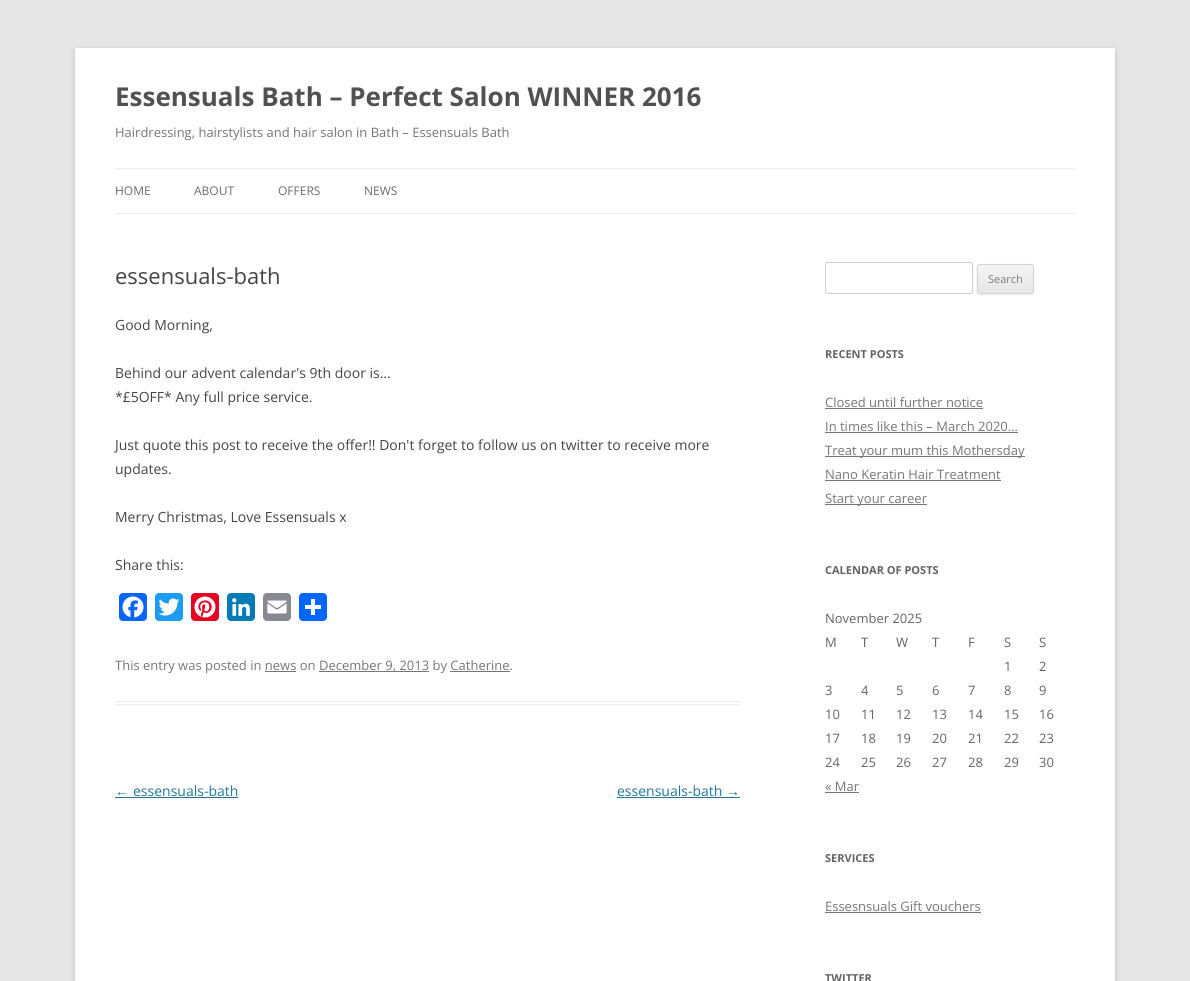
#include <cairo.h>
#include <math.h>
#include <stddef.h>


static void rgb(cairo_t *cr, int r, int g, int b)
{
	cairo_set_source_rgb(cr, r / 255.0, g / 255.0, b / 255.0);
}

static void face(cairo_t *cr, const char *family, double size, int italic, int bold)
{
	cairo_select_font_face(cr, family, italic ? CAIRO_FONT_SLANT_ITALIC : CAIRO_FONT_SLANT_NORMAL,
		bold ? CAIRO_FONT_WEIGHT_BOLD : CAIRO_FONT_WEIGHT_NORMAL);
	cairo_set_font_size(cr, size);
}

static void label(cairo_t *cr, double x, double y, const char *s)
{
	cairo_move_to(cr, x, y);
	cairo_show_text(cr, s);
}

static void rect(cairo_t *cr, double x, double y, double w, double h)
{
	cairo_rectangle(cr, x, y, w, h);
	cairo_fill(cr);
}

static void rrect(cairo_t *cr, double x, double y, double w, double h, double r)
{
	cairo_new_sub_path(cr);
	cairo_arc(cr, x + w - r, y + h - r, r, 0, M_PI / 2);
	cairo_arc(cr, x + r, y + h - r, r, M_PI / 2, M_PI);
	cairo_arc(cr, x + r, y + r, r, M_PI, 1.5 * M_PI);
	cairo_arc(cr, x + w - r, y + r, r, 1.5 * M_PI, 2 * M_PI);
	cairo_close_path(cr);
}

static void soft_shadow(cairo_t *cr, double x, double y, double w, double h, double r, double blur, double alpha)
{
	cairo_push_group_with_content(cr, CAIRO_CONTENT_ALPHA);
	cairo_set_operator(cr, CAIRO_OPERATOR_SOURCE);
	for (int i = 15; i >= -15 && fmin(w, h) + blur * i / 3 > 0; i -= 2) {
		double e = blur * i / 6;
		cairo_set_source_rgba(cr, 0, 0, 0, alpha * erfc((i - 1) / 8.5) / 2);
		rrect(cr, x - e, y - e, w + 2 * e, h + 2 * e, fmax(0, fmin(r + e + blur * .6, fmin(w, h) / 2 + e)));
		cairo_fill(cr);
	}
	cairo_pattern_t *soft = cairo_pop_group(cr);
	cairo_mask(cr, soft);
	cairo_pattern_destroy(soft);
}

static void image(cairo_t *cr, const char *path, double x, double y, double w, double h)
{
	cairo_surface_t *image = cairo_image_surface_create_from_png(path);
	cairo_save(cr);
	cairo_set_source_surface(cr, image, x, y);
	cairo_rectangle(cr, x, y, w, h);
	cairo_fill(cr);
	cairo_restore(cr);
	cairo_surface_destroy(image);
}

static void draw(cairo_t *cr) {
	cairo_pattern_t *gradient;
	rgb(cr, 230, 230, 230);
	cairo_paint(cr);
	rgb(cr, 100, 100, 100);
	soft_shadow(cr, 75, 50, 1040, 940, 0, 3, 0.3);
	rgb(cr, 255, 255, 255);
	rect(cr, 75, 48, 1040, 933);
	face(cr, "Open Sans", 26, 0, 1);
	rgb(cr, 81, 81, 81);
	label(cr, 115, 106, "Essensuals Bath – Perfect Salon WINNER 2016");
	face(cr, "Open Sans", 13, 0, 0);
	rgb(cr, 117, 117, 117);
	label(cr, 115, 137, "Hairdressing, hairstylists and hair salon in Bath – Essensuals Bath");
	rgb(cr, 237, 237, 237);
	rect(cr, 115, 168, 960, 1);
	rect(cr, 115, 213, 960, 1);
	face(cr, "Open Sans", 12, 0, 0);
	rgb(cr, 106, 106, 106);
	label(cr, 115, 195, "HOME");
	label(cr, 194, 195, "ABOUT");
	label(cr, 278, 195, "OFFERS");
	label(cr, 364, 195, "NEWS");
	rgb(cr, 237, 237, 237);
	rect(cr, 115, 701, 625, 1);
	rect(cr, 115, 704, 625, 1);
	face(cr, "Open Sans", 22, 0, 0);
	rgb(cr, 68, 68, 68);
	label(cr, 115, 284, "essensuals-bath");
	face(cr, "Open Sans", 14, 0, 0);
	label(cr, 115, 330, "Good Morning,");
	label(cr, 115, 378, "Behind our advent calendar's 9th door is…");
	label(cr, 115, 402, "*£5OFF* Any full price service.");
	label(cr, 115, 450, "Just quote this post to receive the offer!! Don't forget to follow us on twitter to receive more");
	label(cr, 115, 474, "updates.");
	label(cr, 115, 522, "Merry Christmas, Love Essensuals x");
	label(cr, 115, 570, "Share this:");
	rgb(cr, 8, 102, 255);
	rrect(cr, 119, 593, 28, 28, 4);
	cairo_fill(cr);
	image(cr, "image0.png", 122, 596, 22, 22);
	rgb(cr, 29, 155, 240);
	rrect(cr, 155, 593, 28, 28, 4);
	cairo_fill(cr);
	image(cr, "image1.png", 158, 598, 22, 18);
	rgb(cr, 230, 0, 35);
	rrect(cr, 191, 593, 28, 28, 4);
	cairo_fill(cr);
	image(cr, "image2.png", 194, 596, 22, 22);
	rgb(cr, 0, 123, 181);
	rrect(cr, 227, 593, 28, 28, 4);
	cairo_fill(cr);
	image(cr, "image3.png", 232, 598, 18, 18);
	rgb(cr, 136, 137, 144);
	rrect(cr, 263, 593, 28, 28, 4);
	cairo_fill(cr);
	image(cr, "image4.png", 267, 600, 20, 14);
	rgb(cr, 1, 102, 255);
	rrect(cr, 299, 593, 28, 28, 4);
	cairo_fill(cr);
	rgb(cr, 255, 255, 255);
	rect(cr, 311, 599, 4, 16);
	rect(cr, 305, 605, 16, 4);
	face(cr, "Open Sans", 13, 0, 0);
	rgb(cr, 117, 117, 117);
	label(cr, 115, 670, "This entry was posted in news on");
	rect(cr, 319, 671, 110, 1);
	label(cr, 319, 670, "December 9, 2013 by Catherine.");
	rect(cr, 265, 671, 31, 1);
	rect(cr, 450, 671, 60, 1);
	face(cr, "Liberation Sans", 14, 0, 0);
	rgb(cr, 33, 117, 155);
	label(cr, 115, 796, "←");
	rect(cr, 115, 797, 123, 1);
	face(cr, "Open Sans", 14, 0, 0);
	label(cr, 133, 796, "essensuals-bath");
	label(cr, 617, 796, "essensuals-bath");
	face(cr, "Liberation Sans", 14, 0, 0);
	label(cr, 726, 796, "→");
	rect(cr, 617, 797, 123, 1);
	rrect(cr, 825.5, 262.5, 147, 31, 2.5);
	rgb(cr, 204, 204, 204);
	cairo_set_line_width(cr, 1);
	cairo_stroke(cr);
	rgb(cr, 64, 64, 64);
	soft_shadow(cr, 977, 265, 57, 30, 3, 1, 0.1);
	cairo_save(cr);
	rrect(cr, 977, 264, 57, 30, 3);
	cairo_clip(cr);
	gradient = cairo_pattern_create_linear(1006, 265, 1006, 293);
	cairo_pattern_add_color_stop_rgba(gradient, 0, 0.957, 0.957, 0.957, 1);
	cairo_pattern_add_color_stop_rgba(gradient, 1, 0.902, 0.902, 0.902, 1);
	cairo_set_source(cr, gradient);
	cairo_pattern_destroy(gradient);
	rect(cr, 977, 265, 57, 28);
	cairo_restore(cr);
	rrect(cr, 977.5, 264.5, 56, 29, 2.5);
	rgb(cr, 210, 210, 210);
	cairo_stroke(cr);
	face(cr, "Open Sans", 11, 0, 0);
	rgb(cr, 124, 124, 124);
	label(cr, 988, 283, "Search");
	face(cr, "Open Sans", 11, 0, 1);
	rgb(cr, 99, 99, 99);
	label(cr, 825, 358, "RECENT POSTS");
	face(cr, "Open Sans", 13, 0, 0);
	rgb(cr, 117, 117, 117);
	label(cr, 825, 407, "Closed until further notice");
	rect(cr, 825, 408, 158, 1);
	label(cr, 825, 431, "In times like this – March 2020…");
	rect(cr, 825, 432, 193, 1);
	rect(cr, 825, 456, 200, 1);
	label(cr, 825, 455, "Treat your mum this Mothersday");
	label(cr, 825, 479, "Nano Keratin Hair Treatment");
	rect(cr, 825, 480, 176, 1);
	rect(cr, 825, 504, 102, 1);
	label(cr, 825, 503, "Start your career");
	face(cr, "Open Sans", 11, 0, 1);
	rgb(cr, 99, 99, 99);
	label(cr, 825, 574, "CALENDAR OF POSTS");
	face(cr, "Open Sans", 13, 0, 0);
	label(cr, 825, 623, "November 2025");
	label(cr, 825, 647, "M");
	label(cr, 861, 647, "T");
	label(cr, 896, 647, "W");
	label(cr, 932, 647, "T");
	label(cr, 968, 647, "F");
	label(cr, 1004, 647, "S");
	label(cr, 1039, 647, "S");
	label(cr, 1004, 671, "1");
	label(cr, 1039, 671, "2");
	label(cr, 825, 695, "3");
	label(cr, 861, 695, "4");
	label(cr, 896, 695, "5");
	label(cr, 932, 695, "6");
	label(cr, 968, 695, "7");
	label(cr, 1004, 695, "8");
	label(cr, 1039, 695, "9");
	label(cr, 825, 719, "10");
	label(cr, 861, 719, "11");
	label(cr, 896, 719, "12");
	label(cr, 932, 719, "13");
	label(cr, 968, 719, "14");
	label(cr, 1004, 719, "15");
	label(cr, 1039, 719, "16");
	label(cr, 825, 743, "17");
	label(cr, 861, 743, "18");
	label(cr, 896, 743, "19");
	label(cr, 932, 743, "20");
	label(cr, 968, 743, "21");
	label(cr, 1004, 743, "22");
	label(cr, 1039, 743, "23");
	label(cr, 825, 767, "24");
	label(cr, 861, 767, "25");
	label(cr, 896, 767, "26");
	label(cr, 932, 767, "27");
	label(cr, 968, 767, "28");
	label(cr, 1004, 767, "29");
	label(cr, 1039, 767, "30");
	rgb(cr, 117, 117, 117);
	label(cr, 825, 791, "« Mar");
	rect(cr, 825, 792, 34, 1);
	face(cr, "Open Sans", 11, 0, 1);
	rgb(cr, 99, 99, 99);
	label(cr, 825, 862, "SERVICES");
	face(cr, "Open Sans", 13, 0, 0);
	rgb(cr, 117, 117, 117);
	label(cr, 825, 911, "Essesnsuals Gift vouchers");
	rect(cr, 825, 912, 156, 1);
	face(cr, "Open Sans", 11, 0, 1);
	rgb(cr, 99, 99, 99);
	label(cr, 825, 982, "TWITTER");
}

int main(void) {
	cairo_surface_t *surface = cairo_image_surface_create(CAIRO_FORMAT_RGB24, 1190, 981);
	cairo_t *cr = cairo_create(surface);
	cairo_font_options_t *options = cairo_font_options_create();
	cairo_font_options_set_hint_metrics(options, CAIRO_HINT_METRICS_OFF);
	cairo_font_options_set_hint_style(options, CAIRO_HINT_STYLE_NONE);
	cairo_set_font_options(cr, options);
	cairo_set_miter_limit(cr, 4);
	draw(cr);
	cairo_surface_write_to_png(surface, "render.png");
	cairo_font_options_destroy(options);
	cairo_destroy(cr);
	cairo_surface_destroy(surface);
	return 0;
}
